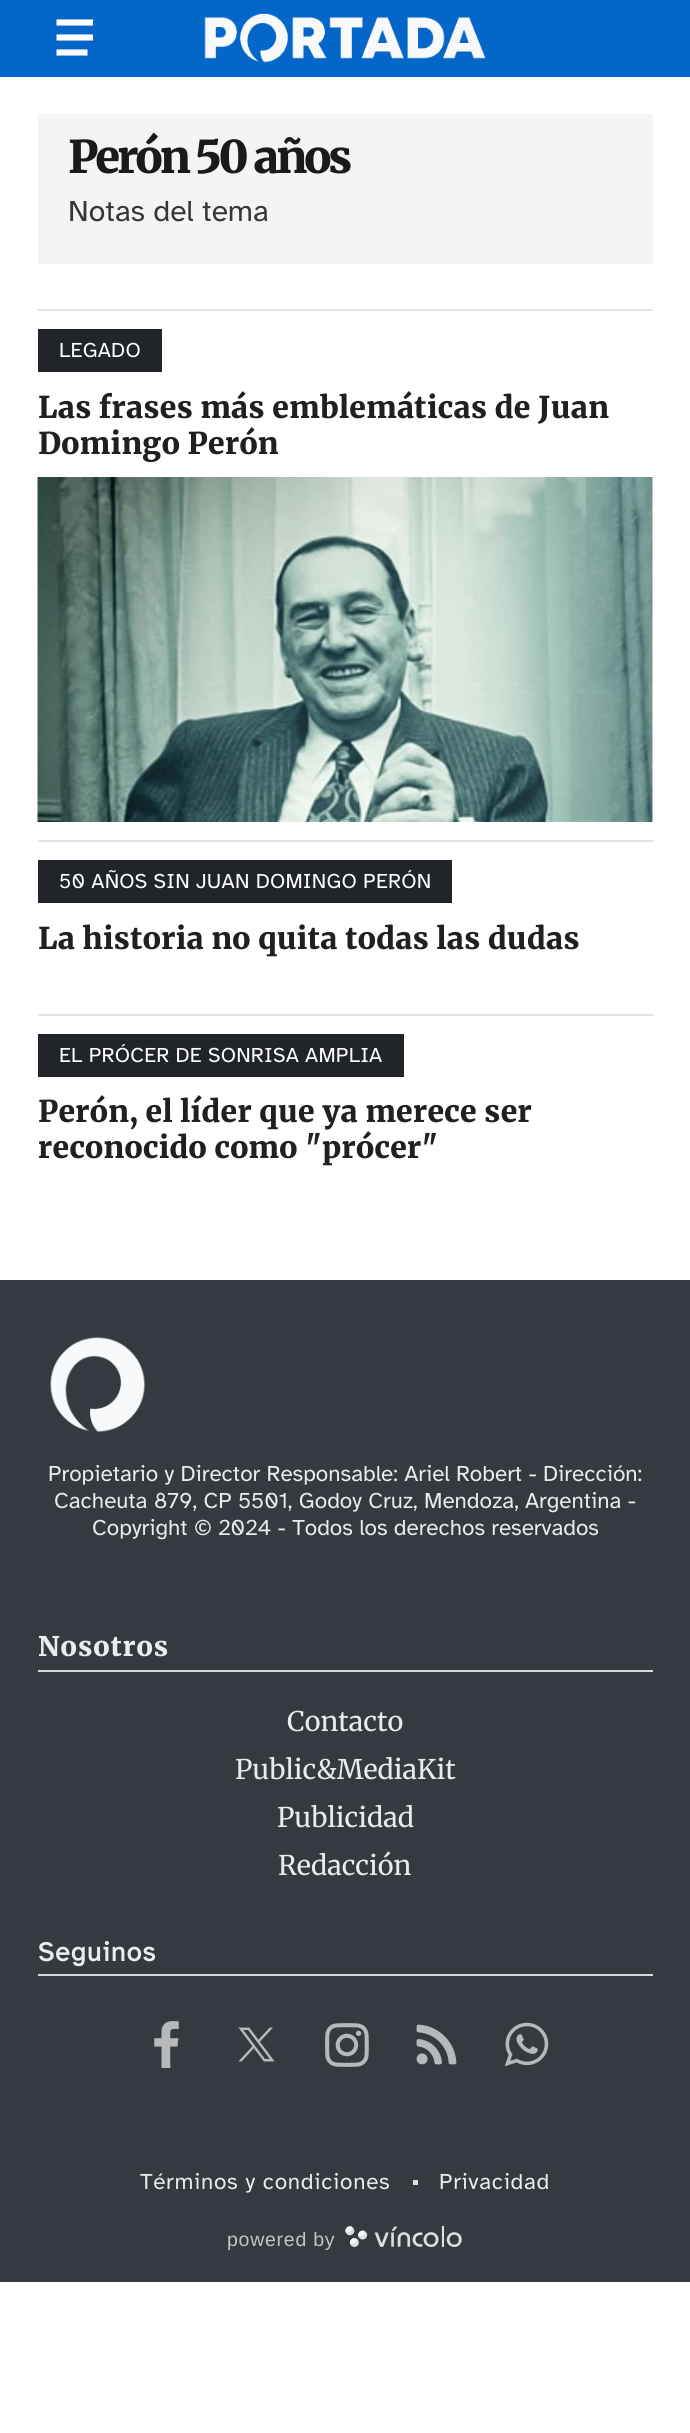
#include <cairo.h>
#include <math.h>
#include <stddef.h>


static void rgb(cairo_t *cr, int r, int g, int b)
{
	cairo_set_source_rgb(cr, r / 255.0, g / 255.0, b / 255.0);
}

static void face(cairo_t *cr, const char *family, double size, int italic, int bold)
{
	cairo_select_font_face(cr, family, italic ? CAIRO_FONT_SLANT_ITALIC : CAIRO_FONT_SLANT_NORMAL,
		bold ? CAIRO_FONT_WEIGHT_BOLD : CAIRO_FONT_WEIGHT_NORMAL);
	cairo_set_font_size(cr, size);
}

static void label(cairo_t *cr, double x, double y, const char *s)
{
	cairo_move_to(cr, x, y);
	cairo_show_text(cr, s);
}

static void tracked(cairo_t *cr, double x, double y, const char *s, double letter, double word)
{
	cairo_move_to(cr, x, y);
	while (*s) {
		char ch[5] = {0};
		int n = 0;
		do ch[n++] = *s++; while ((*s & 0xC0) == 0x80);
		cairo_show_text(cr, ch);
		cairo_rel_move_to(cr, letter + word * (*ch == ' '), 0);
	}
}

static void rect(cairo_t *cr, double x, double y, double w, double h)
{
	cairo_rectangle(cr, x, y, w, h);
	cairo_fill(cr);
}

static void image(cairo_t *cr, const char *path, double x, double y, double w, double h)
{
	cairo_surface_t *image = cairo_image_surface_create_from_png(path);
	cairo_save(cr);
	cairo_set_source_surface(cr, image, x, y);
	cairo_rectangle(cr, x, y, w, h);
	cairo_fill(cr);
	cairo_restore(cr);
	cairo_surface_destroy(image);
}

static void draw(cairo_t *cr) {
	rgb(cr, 255, 255, 255);
	cairo_paint(cr);
	rgb(cr, 4, 102, 200);
	rect(cr, 0, 0, 690, 77);
	cairo_new_path(cr);
	cairo_move_to(cr, 93, 22.5);
	cairo_line_to(cr, 56.5, 22.5);
	cairo_move_to(cr, 93, 37.5);
	cairo_line_to(cr, 56.5, 37.5);
	cairo_move_to(cr, 87.5, 52.5);
	cairo_line_to(cr, 56.5, 52.5);
	rgb(cr, 255, 255, 255);
	cairo_set_line_width(cr, 6.1);
	cairo_stroke(cr);
	image(cr, "image0.png", 204, 13, 282, 50);
	rgb(cr, 244, 244, 244);
	rect(cr, 38, 114, 615, 150);
	face(cr, "Merriweather Black", 45, 0, 0);
	rgb(cr, 26, 26, 26);
	tracked(cr, 68, 173, "Perón 50 años", -3, 0);
	face(cr, "Atkinson Hyperlegible", 30, 0, 0);
	rgb(cr, 54, 54, 54);
	label(cr, 68, 221, "Notas del tema");
	rgb(cr, 232, 227, 227);
	rect(cr, 38, 309, 615, 2);
	rgb(cr, 33, 37, 41);
	rect(cr, 38, 329, 124, 43);
	face(cr, "Atkinson Hyperlegible", 21, 0, 0);
	rgb(cr, 255, 255, 255);
	tracked(cr, 59, 357, "LEGADO", 0.2, 0);
	face(cr, "Merriweather Black", 30, 0, 0);
	rgb(cr, 32, 32, 32);
	tracked(cr, 38, 418, "Las frases más emblemáticas de Juan", 0.3, 0);
	tracked(cr, 38, 454, "Domingo Perón", 0.3, 0);
	image(cr, "image1.png", 37, 477, 616, 345);
	rgb(cr, 232, 227, 227);
	rect(cr, 38, 840, 615, 2);
	rgb(cr, 33, 37, 41);
	rect(cr, 38, 860, 414, 43);
	face(cr, "Atkinson Hyperlegible", 21, 0, 0);
	rgb(cr, 255, 255, 255);
	tracked(cr, 59, 888, "50 AÑOS SIN JUAN DOMINGO PERÓN", 0.2, 0);
	face(cr, "Merriweather Black", 30, 0, 0);
	rgb(cr, 32, 32, 32);
	tracked(cr, 38, 949, "La historia no quita todas las dudas", 0.3, 0);
	rgb(cr, 232, 227, 227);
	rect(cr, 38, 1014, 615, 2);
	rgb(cr, 33, 37, 41);
	rect(cr, 38, 1034, 366, 43);
	face(cr, "Atkinson Hyperlegible", 21, 0, 0);
	rgb(cr, 255, 255, 255);
	tracked(cr, 59, 1062, "EL PRÓCER DE SONRISA AMPLIA", 0.2, 0);
	face(cr, "Merriweather Black", 30, 0, 0);
	rgb(cr, 32, 32, 32);
	tracked(cr, 38, 1122, "Perón, el líder que ya merece ser", 0.3, 0);
	tracked(cr, 38, 1158, "reconocido como \"prócer\"", 0.3, 0);
	rgb(cr, 52, 58, 64);
	rect(cr, 0, 1280, 690, 1002);
	image(cr, "image2.png", 50, 1337, 96, 96);
	face(cr, "Atkinson Hyperlegible", 22.5, 0, 0);
	rgb(cr, 235, 235, 236);
	label(cr, 48, 1481, "Propietario y Director Responsable: Ariel Robert - Dirección:");
	label(cr, 54, 1508, "Cacheuta 879, CP 5501, Godoy Cruz, Mendoza, Argentina -");
	label(cr, 92, 1535, "Copyright © 2024 - Todos los derechos reservados");
	face(cr, "Merriweather Black", 27, 0, 0);
	tracked(cr, 38, 1656, "Nosotros", 1, 0);
	rgb(cr, 214, 216, 217);
	rect(cr, 38, 1670, 615, 2);
	face(cr, "Merriweather", 27, 0, 0);
	rgb(cr, 235, 235, 236);
	label(cr, 287, 1731, "Contacto");
	label(cr, 235, 1779, "Public&MediaKit");
	label(cr, 277, 1827, "Publicidad");
	label(cr, 278, 1875, "Redacción");
	face(cr, "Atkinson Hyperlegible", 27, 0, 1);
	tracked(cr, 38, 1961, "Seguinos", 1, 0);
	rgb(cr, 214, 216, 217);
	rect(cr, 38, 1974, 615, 2);
	image(cr, "image3.png", 154, 2021, 25, 47);
	image(cr, "image4.png", 238, 2027, 37, 35);
	image(cr, "image5.png", 325, 2023, 44, 44);
	image(cr, "image6.png", 416, 2024, 41, 41);
	image(cr, "image7.png", 504, 2022, 45, 45);
	face(cr, "Atkinson Hyperlegible", 22.5, 0, 0);
	rgb(cr, 235, 235, 236);
	tracked(cr, 140, 2189, "Términos y condiciones", 0.7, 0);
	rgb(cr, 221, 221, 221);
	rect(cr, 413, 2180, 5, 5);
	rgb(cr, 235, 235, 236);
	tracked(cr, 439, 2189, "Privacidad", 0.7, 0);
	face(cr, "Liberation Sans", 19.5, 0, 0);
	rgb(cr, 194, 196, 198);
	tracked(cr, 227, 2246, "powered by", 0.75, 0);
	image(cr, "image8.png", 345, 2225, 117, 22);
}

int main(void) {
	cairo_surface_t *surface = cairo_image_surface_create(CAIRO_FORMAT_RGB24, 690, 2433);
	cairo_t *cr = cairo_create(surface);
	cairo_font_options_t *options = cairo_font_options_create();
	cairo_font_options_set_hint_metrics(options, CAIRO_HINT_METRICS_OFF);
	cairo_font_options_set_hint_style(options, CAIRO_HINT_STYLE_NONE);
	cairo_set_font_options(cr, options);
	cairo_set_miter_limit(cr, 4);
	draw(cr);
	cairo_surface_write_to_png(surface, "render.png");
	cairo_font_options_destroy(options);
	cairo_destroy(cr);
	cairo_surface_destroy(surface);
	return 0;
}
